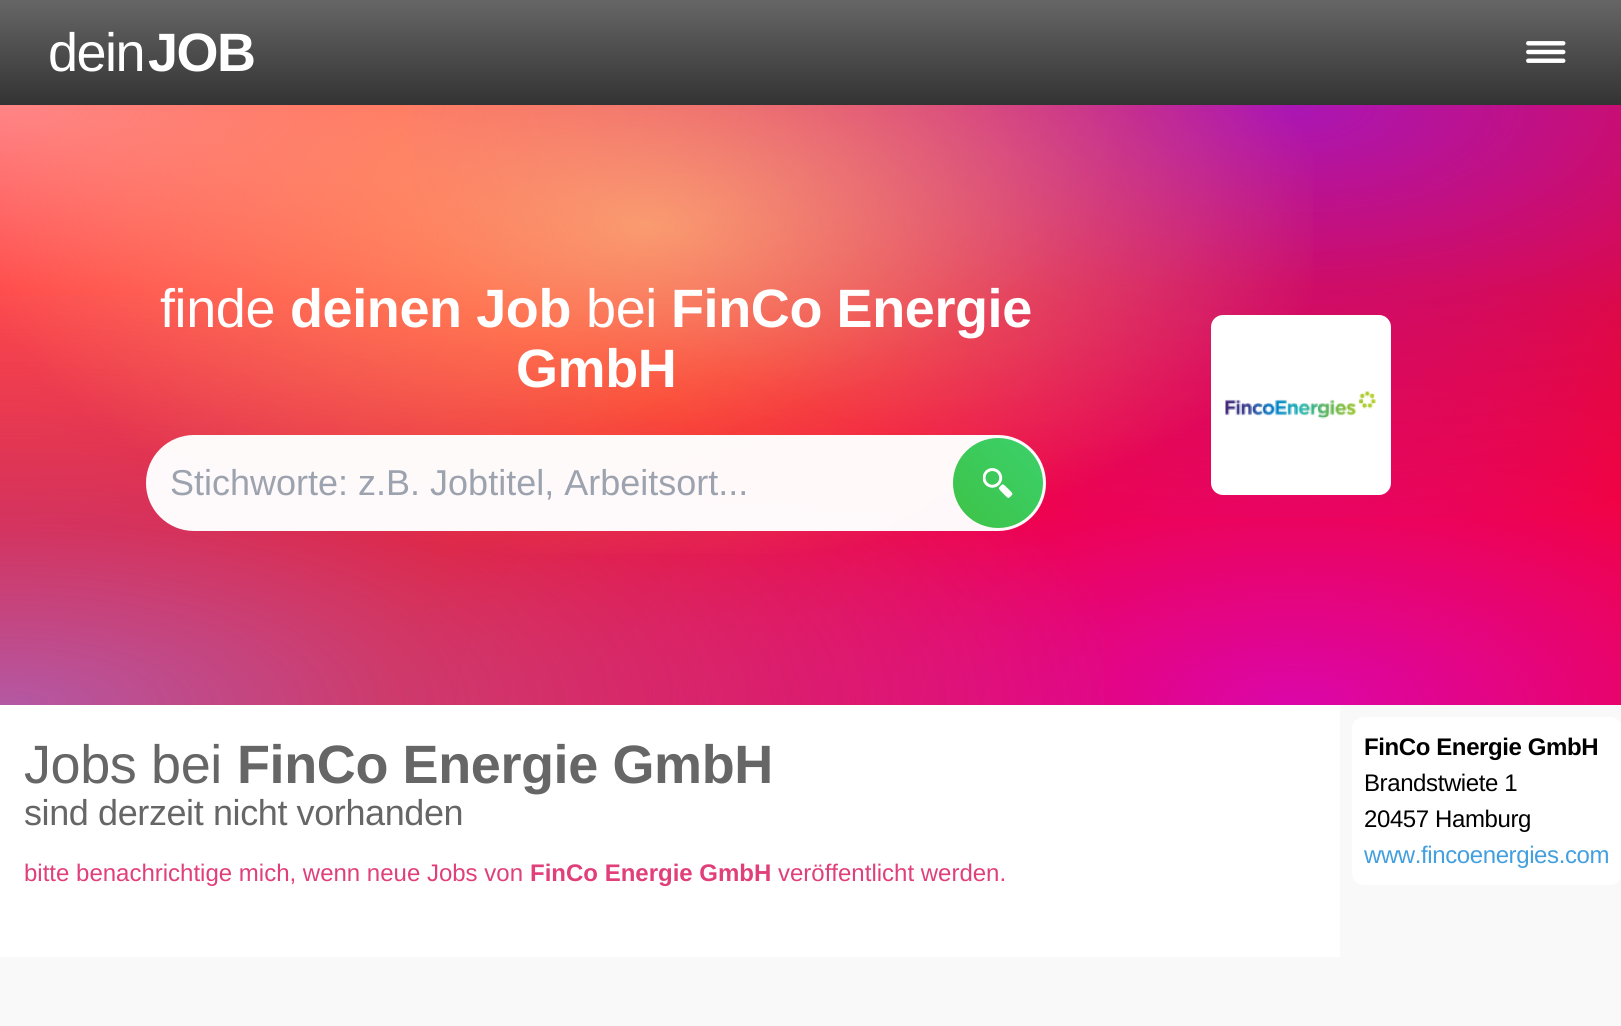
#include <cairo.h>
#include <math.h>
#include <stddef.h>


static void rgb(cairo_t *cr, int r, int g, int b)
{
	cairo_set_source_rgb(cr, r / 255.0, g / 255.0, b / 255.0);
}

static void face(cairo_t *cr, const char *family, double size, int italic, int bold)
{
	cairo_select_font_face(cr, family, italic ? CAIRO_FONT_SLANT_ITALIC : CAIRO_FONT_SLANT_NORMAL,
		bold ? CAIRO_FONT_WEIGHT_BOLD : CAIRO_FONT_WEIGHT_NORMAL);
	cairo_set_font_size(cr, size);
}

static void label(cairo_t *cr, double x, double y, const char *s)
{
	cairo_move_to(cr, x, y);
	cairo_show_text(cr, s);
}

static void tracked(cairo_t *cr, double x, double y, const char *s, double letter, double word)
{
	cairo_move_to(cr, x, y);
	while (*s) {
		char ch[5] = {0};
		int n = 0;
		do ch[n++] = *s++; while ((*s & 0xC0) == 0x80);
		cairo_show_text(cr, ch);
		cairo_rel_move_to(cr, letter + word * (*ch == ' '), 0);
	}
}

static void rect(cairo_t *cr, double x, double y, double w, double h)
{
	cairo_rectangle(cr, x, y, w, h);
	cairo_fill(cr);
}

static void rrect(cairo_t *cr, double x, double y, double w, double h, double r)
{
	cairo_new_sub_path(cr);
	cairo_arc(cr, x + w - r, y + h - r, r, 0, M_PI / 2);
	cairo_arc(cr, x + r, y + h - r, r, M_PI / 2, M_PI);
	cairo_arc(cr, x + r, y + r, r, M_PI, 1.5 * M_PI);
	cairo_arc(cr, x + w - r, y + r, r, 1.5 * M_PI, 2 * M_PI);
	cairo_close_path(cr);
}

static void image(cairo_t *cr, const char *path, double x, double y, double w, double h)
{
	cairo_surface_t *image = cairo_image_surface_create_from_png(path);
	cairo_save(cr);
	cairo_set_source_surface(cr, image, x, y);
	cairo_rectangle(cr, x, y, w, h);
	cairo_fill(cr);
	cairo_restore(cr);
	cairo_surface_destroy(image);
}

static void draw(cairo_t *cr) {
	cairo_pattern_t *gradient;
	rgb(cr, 249, 249, 249);
	cairo_paint(cr);
	gradient = cairo_pattern_create_linear(811, 0, 811, 105);
	cairo_pattern_add_color_stop_rgba(gradient, 0, 0.4, 0.4, 0.4, 1);
	cairo_pattern_add_color_stop_rgba(gradient, 1, 0.2, 0.2, 0.2, 1);
	cairo_set_source(cr, gradient);
	cairo_pattern_destroy(gradient);
	rect(cr, 0, 0, 1621, 105);
	face(cr, "Liberation Sans", 54, 0, 0);
	rgb(cr, 255, 255, 255);
	tracked(cr, 48, 71, "dein", -1.5, 0);
	face(cr, "Liberation Sans", 54, 0, 1);
	tracked(cr, 148, 71, "JOB", -1.5, 0);
	image(cr, "image0.png", 1526, 41, 40, 22);
	gradient = cairo_pattern_create_radial(0, 0, 0, 0, 0, 1);
	cairo_pattern_set_matrix(gradient, &(cairo_matrix_t){1.0 / 2293, 0, 0, 1.0 / 849, -1.0 * 0 / 2293, -1.0 * 105 / 849});
	cairo_pattern_add_color_stop_rgba(gradient, 0, 1, 0.522, 0.529, 1);
	cairo_pattern_add_color_stop_rgba(gradient, 0.5, 1, 0, 0, 1);
	cairo_set_source(cr, gradient);
	cairo_pattern_destroy(gradient);
	rect(cr, 0, 105, 1621, 600);
	gradient = cairo_pattern_create_radial(0, 0, 0, 0, 0, 1);
	cairo_pattern_set_matrix(gradient, &(cairo_matrix_t){1.0 / 1835, 0, 0, 1.0 / 849, -1.0 * 1297 / 1835, -1.0 * 705 / 849});
	cairo_pattern_add_color_stop_rgba(gradient, 0, 0.859, 0.024, 0.663, 1);
	cairo_pattern_add_color_stop_rgba(gradient, 0.5, 0.859, 0.024, 0.663, 0);
	cairo_set_source(cr, gradient);
	cairo_pattern_destroy(gradient);
	rect(cr, 403, 289, 1218, 416);
	gradient = cairo_pattern_create_radial(0, 0, 0, 0, 0, 1);
	cairo_pattern_set_matrix(gradient, &(cairo_matrix_t){1.0 / 2293, 0, 0, 1.0 / 849, -1.0 * 0 / 2293, -1.0 * 705 / 849});
	cairo_pattern_add_color_stop_rgba(gradient, 0, 0.541, 0.541, 1, 0.64);
	cairo_pattern_add_color_stop_rgba(gradient, 0.5, 0.541, 0.541, 1, 0);
	cairo_set_source(cr, gradient);
	cairo_pattern_destroy(gradient);
	rect(cr, 0, 295, 1104, 410);
	gradient = cairo_pattern_create_radial(0, 0, 0, 0, 0, 1);
	cairo_pattern_set_matrix(gradient, &(cairo_matrix_t){1.0 / 1835, 0, 0, 1.0 / 849, -1.0 * 1297 / 1835, -1.0 * 105 / 849});
	cairo_pattern_add_color_stop_rgba(gradient, 0, 0.529, 0.122, 1, 0.71);
	cairo_pattern_add_color_stop_rgba(gradient, 0.5, 0.529, 0.122, 1, 0);
	cairo_set_source(cr, gradient);
	cairo_pattern_destroy(gradient);
	rect(cr, 411, 105, 1210, 412);
	gradient = cairo_pattern_create_radial(0, 0, 0, 0, 0, 1);
	cairo_pattern_set_matrix(gradient, &(cairo_matrix_t){1.0 / 1376, 0, 0, 1.0 / 679, -1.0 * 649 / 1376, -1.0 * 225 / 679});
	cairo_pattern_add_color_stop_rgba(gradient, 0, 1, 0.757, 0.478, 0.74);
	cairo_pattern_add_color_stop_rgba(gradient, 0.5, 1, 0.757, 0.478, 0);
	cairo_set_source(cr, gradient);
	cairo_pattern_destroy(gradient);
	rect(cr, 0, 105, 1313, 449);
	face(cr, "Liberation Sans", 54, 0, 0);
	rgb(cr, 255, 255, 255);
	tracked(cr, 160, 327, "finde", -0.4, 0);
	face(cr, "Liberation Sans", 54, 0, 1);
	tracked(cr, 290, 327, "deinen Job", -0.4, 0);
	face(cr, "Liberation Sans", 54, 0, 0);
	tracked(cr, 586, 327, "bei", -0.4, 0);
	face(cr, "Liberation Sans", 54, 0, 1);
	tracked(cr, 671, 327, "FinCo Energie", -0.4, 0);
	tracked(cr, 516, 387, "GmbH", -0.4, 0);
	cairo_set_source_rgba(cr, 1, 1, 1, 0.97);
	rrect(cr, 146, 435, 900, 96, 48);
	cairo_fill(cr);
	face(cr, "Liberation Sans", 36, 0, 0);
	rgb(cr, 156, 163, 175);
	label(cr, 170, 495, "Stichworte: z.B. Jobtitel, Arbeitsort...");
	gradient = cairo_pattern_create_linear(953, 528, 1043, 438);
	cairo_pattern_add_color_stop_rgba(gradient, 0, 0.239, 0.761, 0.275, 1);
	cairo_pattern_add_color_stop_rgba(gradient, 1, 0.235, 0.82, 0.424, 1);
	cairo_set_source(cr, gradient);
	cairo_pattern_destroy(gradient);
	cairo_new_path(cr);
	cairo_arc(cr, 998, 483, 45, 0, 2 * M_PI);
	cairo_fill(cr);
	image(cr, "image1.png", 983, 468, 30, 30);
	rgb(cr, 255, 255, 255);
	rrect(cr, 1211, 315, 180, 180, 12);
	cairo_fill(cr);
	image(cr, "image2.png", 1225, 391, 151, 28);
	rect(cr, 0, 705, 1340, 252);
	face(cr, "Liberation Sans", 54, 0, 0);
	rgb(cr, 102, 102, 102);
	tracked(cr, 24, 783, "Jobs bei", -0.4, 0);
	face(cr, "Liberation Sans", 54, 0, 1);
	tracked(cr, 237, 783, "FinCo Energie GmbH", -0.4, 0);
	face(cr, "Liberation Sans", 36, 0, 0);
	tracked(cr, 24, 825, "sind derzeit nicht vorhanden", -0.4, 0);
	face(cr, "Liberation Sans", 24, 0, 0);
	rgb(cr, 224, 63, 121);
	label(cr, 24, 881, "bitte benachrichtige mich, wenn neue Jobs von");
	face(cr, "Liberation Sans", 24, 0, 1);
	label(cr, 530, 881, "FinCo Energie GmbH");
	face(cr, "Liberation Sans", 24, 0, 0);
	label(cr, 778, 881, "veröffentlicht werden.");
	rgb(cr, 255, 255, 255);
	rrect(cr, 1352, 717, 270, 168, 12);
	cairo_fill(cr);
	face(cr, "Liberation Sans", 24, 0, 1);
	rgb(cr, 0, 0, 0);
	tracked(cr, 1364, 755, "FinCo Energie GmbH", -0.4, 0);
	face(cr, "Liberation Sans", 24, 0, 0);
	tracked(cr, 1364, 791, "Brandstwiete 1", -0.4, 0);
	tracked(cr, 1364, 827, "20457 Hamburg", -0.4, 0);
	rgb(cr, 67, 159, 222);
	tracked(cr, 1364, 863, "www.fincoenergies.com", -0.4, 0);
}

int main(void) {
	cairo_surface_t *surface = cairo_image_surface_create(CAIRO_FORMAT_RGB24, 1621, 1026);
	cairo_t *cr = cairo_create(surface);
	cairo_font_options_t *options = cairo_font_options_create();
	cairo_font_options_set_hint_metrics(options, CAIRO_HINT_METRICS_OFF);
	cairo_font_options_set_hint_style(options, CAIRO_HINT_STYLE_NONE);
	cairo_set_font_options(cr, options);
	cairo_set_miter_limit(cr, 4);
	draw(cr);
	cairo_surface_write_to_png(surface, "render.png");
	cairo_font_options_destroy(options);
	cairo_destroy(cr);
	cairo_surface_destroy(surface);
	return 0;
}
